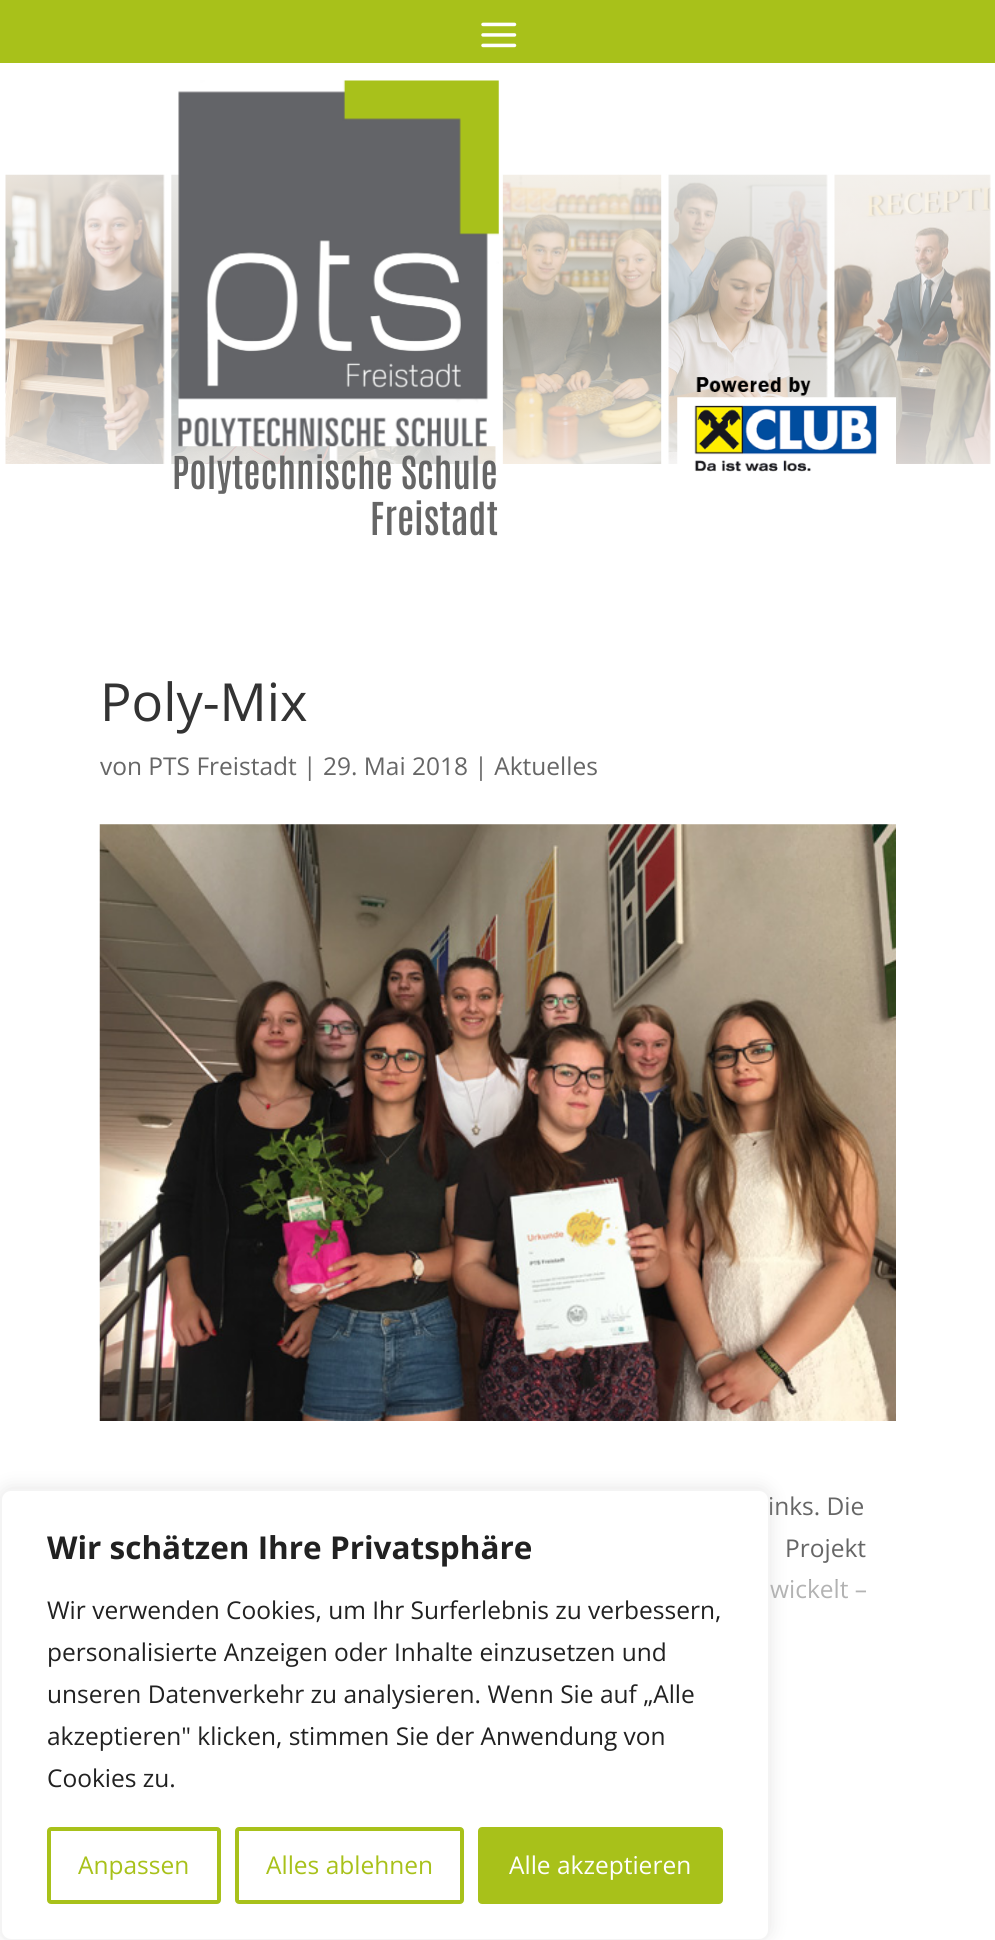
#include <cairo.h>
#include <math.h>
#include <stddef.h>


static void rgb(cairo_t *cr, int r, int g, int b)
{
	cairo_set_source_rgb(cr, r / 255.0, g / 255.0, b / 255.0);
}

static void face(cairo_t *cr, const char *family, double size, int italic, int bold)
{
	cairo_select_font_face(cr, family, italic ? CAIRO_FONT_SLANT_ITALIC : CAIRO_FONT_SLANT_NORMAL,
		bold ? CAIRO_FONT_WEIGHT_BOLD : CAIRO_FONT_WEIGHT_NORMAL);
	cairo_set_font_size(cr, size);
}

static void label(cairo_t *cr, double x, double y, const char *s)
{
	cairo_move_to(cr, x, y);
	cairo_show_text(cr, s);
}

static void rect(cairo_t *cr, double x, double y, double w, double h)
{
	cairo_rectangle(cr, x, y, w, h);
	cairo_fill(cr);
}

static void rrect(cairo_t *cr, double x, double y, double w, double h, double r)
{
	cairo_new_sub_path(cr);
	cairo_arc(cr, x + w - r, y + h - r, r, 0, M_PI / 2);
	cairo_arc(cr, x + r, y + h - r, r, M_PI / 2, M_PI);
	cairo_arc(cr, x + r, y + r, r, M_PI, 1.5 * M_PI);
	cairo_arc(cr, x + w - r, y + r, r, 1.5 * M_PI, 2 * M_PI);
	cairo_close_path(cr);
}

static void soft_shadow(cairo_t *cr, double x, double y, double w, double h, double r, double blur, double alpha)
{
	cairo_push_group_with_content(cr, CAIRO_CONTENT_ALPHA);
	cairo_set_operator(cr, CAIRO_OPERATOR_SOURCE);
	for (int i = 15; i >= -15 && fmin(w, h) + blur * i / 3 > 0; i -= 2) {
		double e = blur * i / 6;
		cairo_set_source_rgba(cr, 0, 0, 0, alpha * erfc((i - 1) / 8.5) / 2);
		rrect(cr, x - e, y - e, w + 2 * e, h + 2 * e, fmax(0, fmin(r + e + blur * .6, fmin(w, h) / 2 + e)));
		cairo_fill(cr);
	}
	cairo_pattern_t *soft = cairo_pop_group(cr);
	cairo_mask(cr, soft);
	cairo_pattern_destroy(soft);
}

static void image(cairo_t *cr, const char *path, double x, double y, double w, double h)
{
	cairo_surface_t *image = cairo_image_surface_create_from_png(path);
	cairo_save(cr);
	cairo_set_source_surface(cr, image, x, y);
	cairo_rectangle(cr, x, y, w, h);
	cairo_fill(cr);
	cairo_restore(cr);
	cairo_surface_destroy(image);
}

static void draw(cairo_t *cr) {
	rgb(cr, 255, 255, 255);
	cairo_paint(cr);
	rgb(cr, 168, 193, 26);
	rect(cr, 0, 0, 995, 63);
	image(cr, "image0.png", 481, 22, 36, 26);
	image(cr, "image1.png", 5, 174, 986, 290);
	image(cr, "image2.png", 677, 377, 219, 95);
	image(cr, "image3.png", 178, 80, 321, 367);
	face(cr, "Antonio SemiBold", 38.5, 0, 0);
	rgb(cr, 102, 102, 102);
	label(cr, 172, 489, "Polytechnische Schule");
	label(cr, 370, 535, "Freistadt");
	face(cr, "Open Sans", 52.5, 0, 0);
	rgb(cr, 51, 51, 51);
	label(cr, 100, 721, "Poly-Mix");
	face(cr, "Open Sans", 24.5, 0, 0);
	rgb(cr, 102, 102, 102);
	label(cr, 100, 775, "von PTS Freistadt | 29. Mai 2018 | Aktuelles");
	image(cr, "image4.png", 99, 824, 797, 597);
	label(cr, 768, 1515, "inks. Die");
	label(cr, 785, 1557, "Projekt");
	label(cr, 770, 1598, "wickelt –");
	cairo_set_source_rgba(cr, 1, 1, 1, 0.5);
	rect(cr, 770, 1580, 97, 19);
	rgb(cr, 172, 171, 171);
	soft_shadow(cr, 0, 1488, 770, 451, 11, 9, 0.3);
	rgb(cr, 255, 255, 255);
	rrect(cr, 1, 1490, 768, 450, 10);
	cairo_fill_preserve(cr);
	rgb(cr, 244, 244, 244);
	cairo_stroke(cr);
	face(cr, "Open Sans", 31.5, 0, 1);
	rgb(cr, 33, 33, 33);
	label(cr, 47, 1559, "Wir schätzen Ihre Privatsphäre");
	face(cr, "Open Sans", 24.5, 0, 0);
	label(cr, 47, 1619, "Wir verwenden Cookies, um Ihr Surferlebnis zu verbessern,");
	label(cr, 47, 1661, "personalisierte Anzeigen oder Inhalte einzusetzen und");
	label(cr, 47, 1703, "unseren Datenverkehr zu analysieren. Wenn Sie auf „Alle");
	label(cr, 47, 1745, "akzeptieren\" klicken, stimmen Sie der Anwendung von");
	label(cr, 47, 1787, "Cookies zu.");
	rrect(cr, 49, 1829, 170, 73, 2);
	rgb(cr, 168, 193, 26);
	cairo_set_line_width(cr, 4);
	cairo_stroke(cr);
	label(cr, 78, 1874, "Anpassen");
	rrect(cr, 237, 1829, 225, 73, 2);
	cairo_stroke(cr);
	label(cr, 266, 1874, "Alles ablehnen");
	rrect(cr, 480, 1829, 241, 73, 2);
	cairo_fill_preserve(cr);
	cairo_stroke(cr);
	rgb(cr, 255, 255, 255);
	label(cr, 509, 1874, "Alle akzeptieren");
}

int main(void) {
	cairo_surface_t *surface = cairo_image_surface_create(CAIRO_FORMAT_RGB24, 995, 1940);
	cairo_t *cr = cairo_create(surface);
	cairo_font_options_t *options = cairo_font_options_create();
	cairo_font_options_set_hint_metrics(options, CAIRO_HINT_METRICS_OFF);
	cairo_font_options_set_hint_style(options, CAIRO_HINT_STYLE_NONE);
	cairo_set_font_options(cr, options);
	cairo_set_miter_limit(cr, 4);
	draw(cr);
	cairo_surface_write_to_png(surface, "render.png");
	cairo_font_options_destroy(options);
	cairo_destroy(cr);
	cairo_surface_destroy(surface);
	return 0;
}
